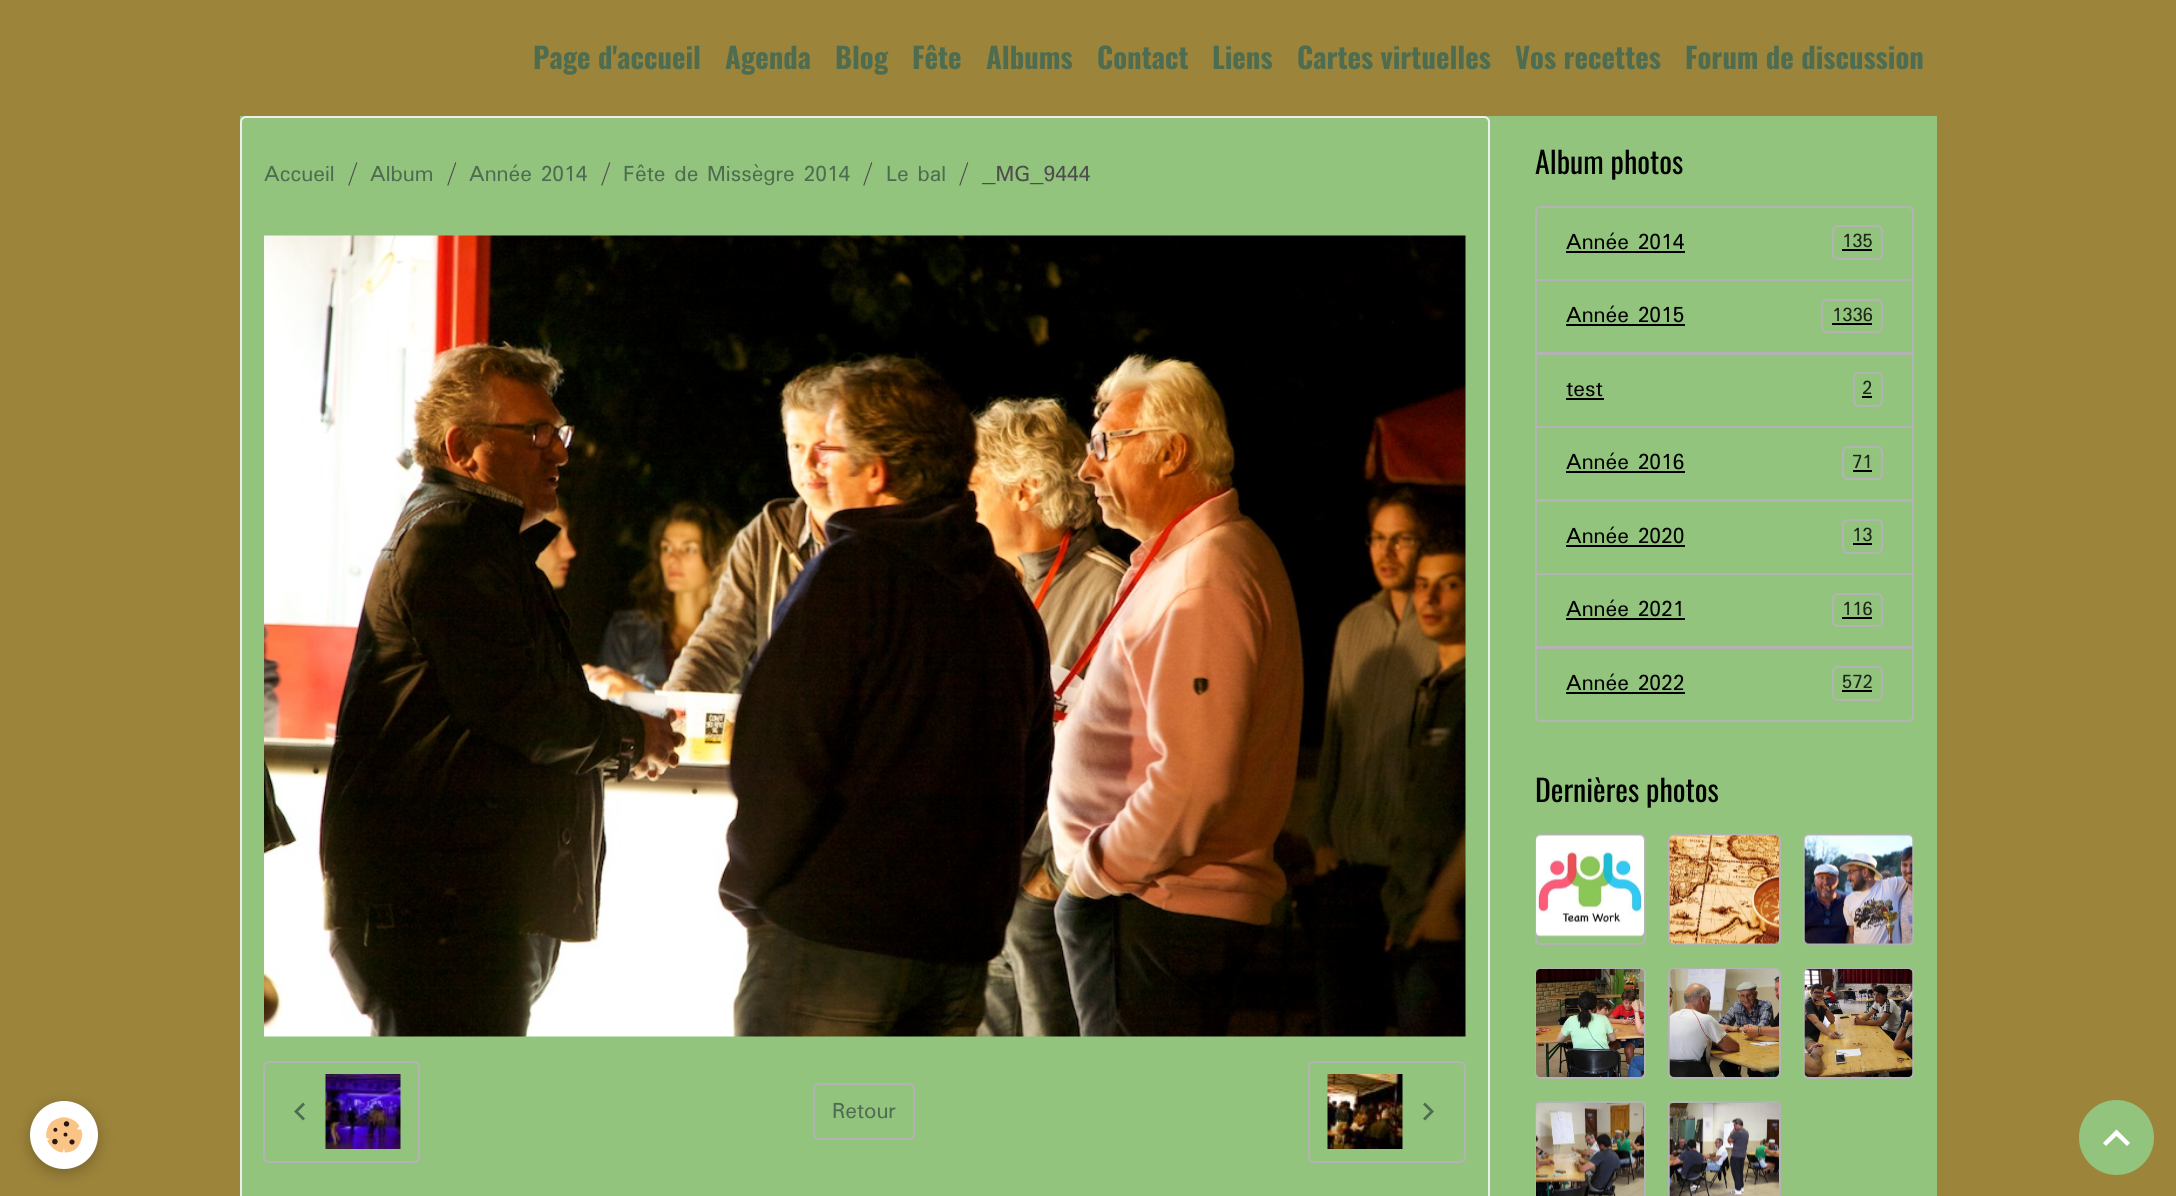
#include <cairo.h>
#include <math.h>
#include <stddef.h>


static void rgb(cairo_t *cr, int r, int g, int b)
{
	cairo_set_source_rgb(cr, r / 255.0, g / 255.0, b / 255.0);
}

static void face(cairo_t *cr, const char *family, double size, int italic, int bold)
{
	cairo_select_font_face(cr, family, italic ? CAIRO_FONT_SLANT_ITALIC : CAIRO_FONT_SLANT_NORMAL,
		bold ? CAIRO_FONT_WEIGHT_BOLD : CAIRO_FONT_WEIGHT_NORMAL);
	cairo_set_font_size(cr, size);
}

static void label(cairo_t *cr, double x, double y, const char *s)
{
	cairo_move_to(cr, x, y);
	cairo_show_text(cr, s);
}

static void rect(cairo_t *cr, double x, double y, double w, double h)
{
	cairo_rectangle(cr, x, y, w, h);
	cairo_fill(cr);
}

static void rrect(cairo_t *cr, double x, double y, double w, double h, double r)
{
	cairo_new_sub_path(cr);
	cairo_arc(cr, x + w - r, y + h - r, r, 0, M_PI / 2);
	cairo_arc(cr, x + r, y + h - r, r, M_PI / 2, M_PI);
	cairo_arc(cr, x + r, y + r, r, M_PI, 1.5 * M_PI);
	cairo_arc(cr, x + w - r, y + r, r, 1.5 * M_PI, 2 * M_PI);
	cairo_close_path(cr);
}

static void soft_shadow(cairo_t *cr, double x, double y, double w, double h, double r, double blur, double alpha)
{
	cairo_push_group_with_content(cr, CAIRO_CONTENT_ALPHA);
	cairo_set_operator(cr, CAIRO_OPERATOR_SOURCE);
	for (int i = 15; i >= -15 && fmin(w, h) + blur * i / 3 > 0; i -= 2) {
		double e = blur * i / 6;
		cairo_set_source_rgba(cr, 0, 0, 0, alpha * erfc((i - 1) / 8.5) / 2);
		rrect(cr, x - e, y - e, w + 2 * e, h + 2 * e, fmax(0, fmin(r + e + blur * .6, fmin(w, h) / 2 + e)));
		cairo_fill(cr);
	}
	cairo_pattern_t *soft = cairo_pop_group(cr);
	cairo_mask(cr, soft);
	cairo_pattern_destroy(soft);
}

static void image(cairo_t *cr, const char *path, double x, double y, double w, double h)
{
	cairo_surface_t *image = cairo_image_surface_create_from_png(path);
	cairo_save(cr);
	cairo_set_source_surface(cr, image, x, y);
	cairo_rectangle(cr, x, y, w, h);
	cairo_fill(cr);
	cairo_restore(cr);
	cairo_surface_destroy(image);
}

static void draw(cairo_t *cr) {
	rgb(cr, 156, 132, 58);
	cairo_paint(cr);
	face(cr, "Oswald", 28.75, 0, 1);
	rgb(cr, 78, 108, 80);
	label(cr, 533, 69, "Page d'accueil");
	label(cr, 725, 69, "Agenda");
	label(cr, 835, 69, "Blog");
	label(cr, 912, 69, "Fête");
	label(cr, 986, 69, "Albums");
	label(cr, 1097, 69, "Contact");
	label(cr, 1212, 69, "Liens");
	label(cr, 1297, 69, "Cartes virtuelles");
	label(cr, 1515, 69, "Vos recettes");
	label(cr, 1685, 69, "Forum de discussion");
	rgb(cr, 147, 196, 125);
	rect(cr, 240, 116, 1697, 1080);
	rrect(cr, 241, 117, 1248, 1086, 5);
	rgb(cr, 238, 238, 238);
	cairo_stroke(cr);
	face(cr, "Padauk", 24, 0, 0);
	rgb(cr, 78, 108, 80);
	label(cr, 264, 181, "Accueil");
	rgb(cr, 77, 77, 77);
	label(cr, 347, 181, "/");
	rgb(cr, 78, 108, 80);
	label(cr, 370, 181, "Album");
	rgb(cr, 77, 77, 77);
	label(cr, 446, 181, "/");
	rgb(cr, 78, 108, 80);
	label(cr, 469, 181, "Année 2014");
	rgb(cr, 77, 77, 77);
	label(cr, 600, 181, "/");
	rgb(cr, 78, 108, 80);
	label(cr, 623, 181, "Fête de Missègre 2014");
	rgb(cr, 77, 77, 77);
	label(cr, 862, 181, "/");
	rgb(cr, 78, 108, 80);
	label(cr, 886, 181, "Le bal");
	rgb(cr, 77, 77, 77);
	label(cr, 958, 181, "/");
	label(cr, 982, 181, "_MG_9444");
	image(cr, "image0.png", 264, 235, 1202, 802);
	rrect(cr, 264, 1062, 155, 100, 5);
	rgb(cr, 179, 179, 179);
	cairo_stroke(cr);
	rgb(cr, 78, 108, 80);
	cairo_new_path(cr);
	cairo_move_to(cr, 305, 1104.5);
	cairo_line_to(cr, 298, 1111.5);
	cairo_line_to(cr, 305, 1118.5);
	cairo_line_to(cr, 303, 1120.5);
	cairo_line_to(cr, 294, 1111.5);
	cairo_line_to(cr, 303, 1102.5);
	cairo_close_path(cr);
	cairo_fill(cr);
	image(cr, "image1.png", 325, 1074, 76, 75);
	rrect(cr, 814, 1084, 100, 55, 5);
	rgb(cr, 179, 179, 179);
	cairo_stroke(cr);
	rgb(cr, 78, 108, 80);
	label(cr, 832, 1118, "Retour");
	rrect(cr, 1309, 1062, 156, 100, 5);
	rgb(cr, 179, 179, 179);
	cairo_stroke(cr);
	image(cr, "image2.png", 1327, 1074, 76, 75);
	rgb(cr, 78, 108, 80);
	cairo_new_path(cr);
	cairo_move_to(cr, 1425, 1102.5);
	cairo_line_to(cr, 1434, 1111.5);
	cairo_line_to(cr, 1425, 1120.5);
	cairo_line_to(cr, 1423, 1118.5);
	cairo_line_to(cr, 1430, 1111.5);
	cairo_line_to(cr, 1423, 1104.5);
	cairo_close_path(cr);
	cairo_fill(cr);
	face(cr, "Oswald", 30, 0, 0);
	rgb(cr, 0, 0, 0);
	label(cr, 1535, 174, "Album photos");
	cairo_new_path(cr);
	cairo_move_to(cr, 1541, 207);
	cairo_line_to(cr, 1908, 207);
	cairo_curve_to(cr, 1911, 207, 1913, 209, 1913, 212);
	cairo_line_to(cr, 1913, 280);
	cairo_line_to(cr, 1536, 280);
	cairo_line_to(cr, 1536, 212);
	cairo_curve_to(cr, 1536, 209, 1538, 207, 1541, 207);
	cairo_close_path(cr);
	rgb(cr, 179, 179, 179);
	cairo_stroke(cr);
	face(cr, "Padauk", 24, 0, 0);
	rgb(cr, 0, 0, 0);
	label(cr, 1566, 249, "Année 2014");
	rect(cr, 1566, 251, 119, 2);
	rrect(cr, 1833, 226, 49, 33, 5);
	rgb(cr, 179, 179, 179);
	cairo_stroke(cr);
	face(cr, "Padauk", 21, 0, 0);
	rgb(cr, 29, 39, 25);
	label(cr, 1842, 247, "135");
	rgb(cr, 0, 0, 0);
	rect(cr, 1842, 249, 30, 2);
	cairo_rectangle(cr, 1536, 280, 377, 73);
	rgb(cr, 179, 179, 179);
	cairo_stroke(cr);
	face(cr, "Padauk", 24, 0, 0);
	rgb(cr, 0, 0, 0);
	label(cr, 1566, 322, "Année 2015");
	rect(cr, 1566, 324, 119, 2);
	rrect(cr, 1822, 300, 60, 32, 5);
	rgb(cr, 179, 179, 179);
	cairo_stroke(cr);
	face(cr, "Padauk", 21, 0, 0);
	rgb(cr, 29, 39, 25);
	label(cr, 1832, 321, "1336");
	rgb(cr, 0, 0, 0);
	rect(cr, 1832, 323, 40, 2);
	cairo_rectangle(cr, 1536, 354, 377, 73);
	rgb(cr, 179, 179, 179);
	cairo_stroke(cr);
	face(cr, "Padauk", 24, 0, 0);
	rgb(cr, 0, 0, 0);
	label(cr, 1566, 396, "test");
	rect(cr, 1566, 398, 38, 2);
	rrect(cr, 1854, 373, 28, 33, 5);
	rgb(cr, 179, 179, 179);
	cairo_stroke(cr);
	face(cr, "Padauk", 21, 0, 0);
	rgb(cr, 29, 39, 25);
	label(cr, 1862, 394, "2");
	rgb(cr, 0, 0, 0);
	rect(cr, 1862, 396, 10, 2);
	cairo_rectangle(cr, 1536, 427, 377, 73);
	rgb(cr, 179, 179, 179);
	cairo_stroke(cr);
	face(cr, "Padauk", 24, 0, 0);
	rgb(cr, 0, 0, 0);
	label(cr, 1566, 469, "Année 2016");
	rect(cr, 1566, 471, 119, 2);
	rrect(cr, 1843, 447, 39, 32, 5);
	rgb(cr, 179, 179, 179);
	cairo_stroke(cr);
	face(cr, "Padauk", 21, 0, 0);
	rgb(cr, 29, 39, 25);
	label(cr, 1852, 468, "71");
	rgb(cr, 0, 0, 0);
	rect(cr, 1853, 470, 19, 2);
	cairo_rectangle(cr, 1536, 501, 377, 73);
	rgb(cr, 179, 179, 179);
	cairo_stroke(cr);
	face(cr, "Padauk", 24, 0, 0);
	rgb(cr, 0, 0, 0);
	label(cr, 1566, 543, "Année 2020");
	rect(cr, 1566, 545, 119, 2);
	rrect(cr, 1843, 520, 39, 33, 5);
	rgb(cr, 179, 179, 179);
	cairo_stroke(cr);
	face(cr, "Padauk", 21, 0, 0);
	rgb(cr, 29, 39, 25);
	label(cr, 1852, 541, "13");
	rgb(cr, 0, 0, 0);
	rect(cr, 1853, 543, 19, 2);
	cairo_rectangle(cr, 1536, 574, 377, 73);
	rgb(cr, 179, 179, 179);
	cairo_stroke(cr);
	face(cr, "Padauk", 24, 0, 0);
	rgb(cr, 0, 0, 0);
	label(cr, 1566, 616, "Année 2021");
	rect(cr, 1566, 618, 119, 2);
	rrect(cr, 1833, 594, 49, 32, 5);
	rgb(cr, 179, 179, 179);
	cairo_stroke(cr);
	face(cr, "Padauk", 21, 0, 0);
	rgb(cr, 29, 39, 25);
	label(cr, 1842, 615, "116");
	rgb(cr, 0, 0, 0);
	rect(cr, 1842, 617, 30, 2);
	cairo_new_path(cr);
	cairo_move_to(cr, 1536, 648);
	cairo_line_to(cr, 1913, 648);
	cairo_line_to(cr, 1913, 716);
	cairo_curve_to(cr, 1913, 719, 1911, 721, 1908, 721);
	cairo_line_to(cr, 1541, 721);
	cairo_curve_to(cr, 1538, 721, 1536, 719, 1536, 716);
	cairo_close_path(cr);
	rgb(cr, 179, 179, 179);
	cairo_stroke(cr);
	face(cr, "Padauk", 24, 0, 0);
	rgb(cr, 0, 0, 0);
	label(cr, 1566, 690, "Année 2022");
	rect(cr, 1566, 692, 119, 2);
	rrect(cr, 1833, 667, 49, 33, 5);
	rgb(cr, 179, 179, 179);
	cairo_stroke(cr);
	face(cr, "Padauk", 21, 0, 0);
	rgb(cr, 29, 39, 25);
	label(cr, 1842, 688, "572");
	rgb(cr, 0, 0, 0);
	rect(cr, 1842, 690, 30, 2);
	face(cr, "Oswald", 30, 0, 0);
	label(cr, 1535, 802, "Dernières photos");
	rrect(cr, 1536, 835, 109, 109, 5);
	rgb(cr, 179, 179, 179);
	cairo_stroke(cr);
	image(cr, "image3.png", 1536, 835, 108, 102);
	rrect(cr, 1669, 835, 111, 109, 5);
	cairo_stroke(cr);
	image(cr, "image4.png", 1669, 835, 110, 109);
	rrect(cr, 1804, 835, 109, 109, 5);
	cairo_stroke(cr);
	image(cr, "image5.png", 1804, 835, 109, 109);
	rrect(cr, 1536, 969, 109, 109, 5);
	cairo_stroke(cr);
	image(cr, "image6.png", 1536, 969, 108, 108);
	rrect(cr, 1669, 969, 111, 109, 5);
	cairo_stroke(cr);
	image(cr, "image7.png", 1669, 969, 110, 108);
	rrect(cr, 1804, 969, 109, 109, 5);
	cairo_stroke(cr);
	image(cr, "image8.png", 1804, 969, 109, 108);
	rrect(cr, 1536, 1102, 109, 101, 5);
	cairo_stroke(cr);
	image(cr, "image9.png", 1536, 1103, 108, 93);
	rrect(cr, 1669, 1102, 111, 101, 5);
	cairo_stroke(cr);
	image(cr, "image10.png", 1669, 1103, 110, 93);
	rgb(cr, 0, 0, 0);
	soft_shadow(cr, 30, 1106, 68, 67, 33.5, 7.5, 0.24);
	rgb(cr, 255, 255, 255);
	cairo_arc(cr, 64, 1135, 34, 0, 2 * M_PI);
	cairo_fill(cr);
	image(cr, "image11.png", 46, 1117, 37, 36);
	rgb(cr, 147, 196, 125);
	cairo_arc(cr, 2116.5, 1137.5, 37.5, 0, 2 * M_PI);
	cairo_fill(cr);
	rgb(cr, 255, 255, 255);
	cairo_new_path(cr);
	cairo_move_to(cr, 2116.5, 1129.5);
	cairo_line_to(cr, 2130, 1143);
	cairo_line_to(cr, 2127, 1146);
	cairo_line_to(cr, 2116.5, 1136);
	cairo_line_to(cr, 2106, 1146);
	cairo_line_to(cr, 2103, 1143);
	cairo_close_path(cr);
	cairo_fill(cr);
}

int main(void) {
	cairo_surface_t *surface = cairo_image_surface_create(CAIRO_FORMAT_RGB24, 2176, 1196);
	cairo_t *cr = cairo_create(surface);
	cairo_font_options_t *options = cairo_font_options_create();
	cairo_font_options_set_hint_metrics(options, CAIRO_HINT_METRICS_OFF);
	cairo_font_options_set_hint_style(options, CAIRO_HINT_STYLE_NONE);
	cairo_set_font_options(cr, options);
	cairo_set_miter_limit(cr, 4);
	draw(cr);
	cairo_surface_write_to_png(surface, "render.png");
	cairo_font_options_destroy(options);
	cairo_destroy(cr);
	cairo_surface_destroy(surface);
	return 0;
}
